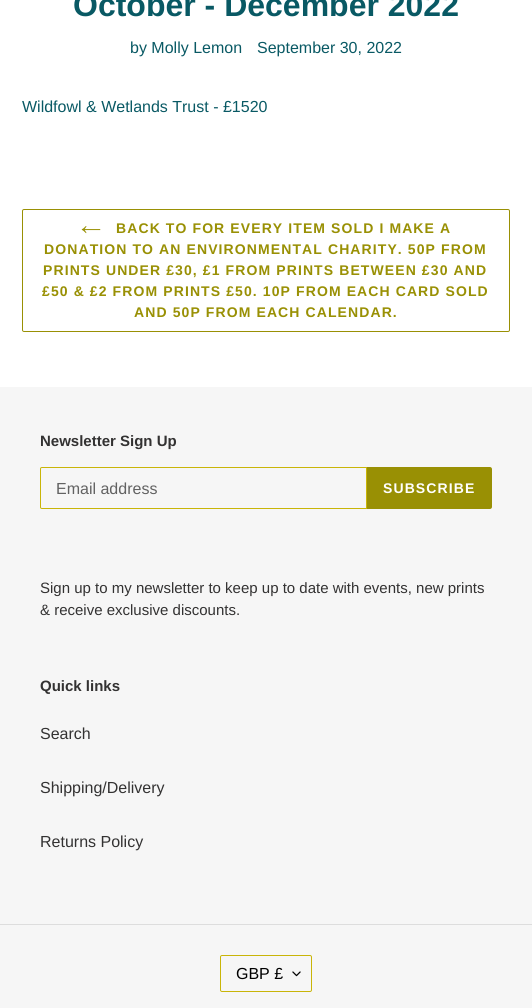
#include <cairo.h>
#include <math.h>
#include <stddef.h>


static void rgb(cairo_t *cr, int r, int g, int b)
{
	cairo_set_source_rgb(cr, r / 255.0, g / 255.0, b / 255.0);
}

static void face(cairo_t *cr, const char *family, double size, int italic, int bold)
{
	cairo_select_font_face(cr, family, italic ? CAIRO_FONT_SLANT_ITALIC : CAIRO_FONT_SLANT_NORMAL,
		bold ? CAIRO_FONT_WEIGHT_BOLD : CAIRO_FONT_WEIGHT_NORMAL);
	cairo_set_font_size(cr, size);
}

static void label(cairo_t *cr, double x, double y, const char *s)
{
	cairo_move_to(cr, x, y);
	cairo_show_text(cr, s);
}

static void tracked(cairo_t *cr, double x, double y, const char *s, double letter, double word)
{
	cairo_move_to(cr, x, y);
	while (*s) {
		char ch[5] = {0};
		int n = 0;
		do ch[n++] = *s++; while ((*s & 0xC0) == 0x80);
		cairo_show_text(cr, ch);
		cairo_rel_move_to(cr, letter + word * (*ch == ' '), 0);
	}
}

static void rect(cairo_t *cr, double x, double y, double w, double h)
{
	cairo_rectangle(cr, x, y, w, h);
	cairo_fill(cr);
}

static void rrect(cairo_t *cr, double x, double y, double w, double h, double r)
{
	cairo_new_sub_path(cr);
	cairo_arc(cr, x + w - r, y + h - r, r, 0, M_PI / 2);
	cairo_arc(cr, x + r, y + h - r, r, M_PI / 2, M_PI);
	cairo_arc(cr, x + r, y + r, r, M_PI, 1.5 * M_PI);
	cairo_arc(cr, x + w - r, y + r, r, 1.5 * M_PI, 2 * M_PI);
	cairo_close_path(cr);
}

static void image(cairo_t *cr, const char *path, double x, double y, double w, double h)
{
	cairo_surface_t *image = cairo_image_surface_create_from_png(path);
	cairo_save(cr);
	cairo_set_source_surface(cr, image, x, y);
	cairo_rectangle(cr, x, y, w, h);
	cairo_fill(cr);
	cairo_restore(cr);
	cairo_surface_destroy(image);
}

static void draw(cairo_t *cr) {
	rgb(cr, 255, 255, 255);
	cairo_paint(cr);
	face(cr, "Liberation Sans", 32, 0, 1);
	rgb(cr, 9, 89, 100);
	label(cr, 73, 16, "October - December 2022");
	face(cr, "Liberation Sans", 16, 0, 0);
	label(cr, 130, 53, "by Molly Lemon");
	label(cr, 257, 53, "September 30, 2022");
	label(cr, 22, 112, "Wildfowl & Wetlands Trust - £1520");
	rrect(cr, 22.5, 209.5, 487, 122, 1.5);
	rgb(cr, 153, 144, 4);
	cairo_set_line_width(cr, 1);
	cairo_stroke(cr);
	image(cr, "image0.png", 81, 226, 20, 8);
	face(cr, "Liberation Sans", 14, 0, 1);
	tracked(cr, 116, 233, "BACK TO FOR EVERY ITEM SOLD I MAKE A", 1.1, 0);
	tracked(cr, 44, 254, "DONATION TO AN ENVIRONMENTAL CHARITY. 50P FROM", 1.1, 0);
	tracked(cr, 43, 275, "PRINTS UNDER £30, £1 FROM PRINTS BETWEEN £30 AND", 1.1, 0);
	tracked(cr, 42, 296, "£50 & £2 FROM PRINTS £50. 10P FROM EACH CARD SOLD", 1.1, 0);
	tracked(cr, 134, 317, "AND 50P FROM EACH CALENDAR.", 1.1, 0);
	rgb(cr, 246, 246, 246);
	rect(cr, 0, 387, 532, 621);
	face(cr, "Liberation Sans", 15, 0, 1);
	rgb(cr, 51, 50, 50);
	label(cr, 40, 446, "Newsletter Sign Up");
	cairo_new_path(cr);
	cairo_move_to(cr, 42, 467.5);
	cairo_line_to(cr, 366.5, 467.5);
	cairo_line_to(cr, 366.5, 508.5);
	cairo_line_to(cr, 42, 508.5);
	cairo_curve_to(cr, 41, 508.5, 40.5, 508, 40.5, 507);
	cairo_line_to(cr, 40.5, 469);
	cairo_curve_to(cr, 40.5, 468, 41, 467.5, 42, 467.5);
	cairo_close_path(cr);
	rgb(cr, 201, 181, 8);
	cairo_stroke(cr);
	face(cr, "Liberation Sans", 16, 0, 0);
	rgb(cr, 98, 98, 98);
	label(cr, 56, 494, "Email address");
	rgb(cr, 153, 144, 4);
	cairo_new_path(cr);
	cairo_move_to(cr, 367, 467);
	cairo_line_to(cr, 490, 467);
	cairo_curve_to(cr, 491, 467, 492, 468, 492, 469);
	cairo_line_to(cr, 492, 507);
	cairo_curve_to(cr, 492, 508, 491, 509, 490, 509);
	cairo_line_to(cr, 367, 509);
	cairo_close_path(cr);
	cairo_fill(cr);
	face(cr, "Liberation Sans", 14, 0, 1);
	rgb(cr, 255, 255, 255);
	tracked(cr, 383, 493, "SUBSCRIBE", 1.1, 0);
	face(cr, "Liberation Sans", 15, 0, 0);
	rgb(cr, 51, 50, 50);
	label(cr, 40, 593, "Sign up to my newsletter to keep up to date with events, new prints");
	label(cr, 40, 615, "& receive exclusive discounts.");
	face(cr, "Liberation Sans", 15, 0, 1);
	label(cr, 40, 691, "Quick links");
	face(cr, "Liberation Sans", 16, 0, 0);
	label(cr, 40, 739, "Search");
	label(cr, 40, 793, "Shipping/Delivery");
	label(cr, 40, 847, "Returns Policy");
	rgb(cr, 221, 221, 221);
	rect(cr, 0, 924, 532, 1);
	image(cr, "image1.png", 292, 971, 9, 6);
	rrect(cr, 220.5, 955.5, 91, 36, 1.5);
	rgb(cr, 201, 181, 8);
	cairo_stroke(cr);
	rgb(cr, 0, 0, 0);
	label(cr, 236, 979, "GBP £");
}

int main(void) {
	cairo_surface_t *surface = cairo_image_surface_create(CAIRO_FORMAT_RGB24, 532, 1008);
	cairo_t *cr = cairo_create(surface);
	cairo_font_options_t *options = cairo_font_options_create();
	cairo_font_options_set_hint_metrics(options, CAIRO_HINT_METRICS_OFF);
	cairo_font_options_set_hint_style(options, CAIRO_HINT_STYLE_NONE);
	cairo_set_font_options(cr, options);
	cairo_set_miter_limit(cr, 4);
	draw(cr);
	cairo_surface_write_to_png(surface, "render.png");
	cairo_font_options_destroy(options);
	cairo_destroy(cr);
	cairo_surface_destroy(surface);
	return 0;
}
